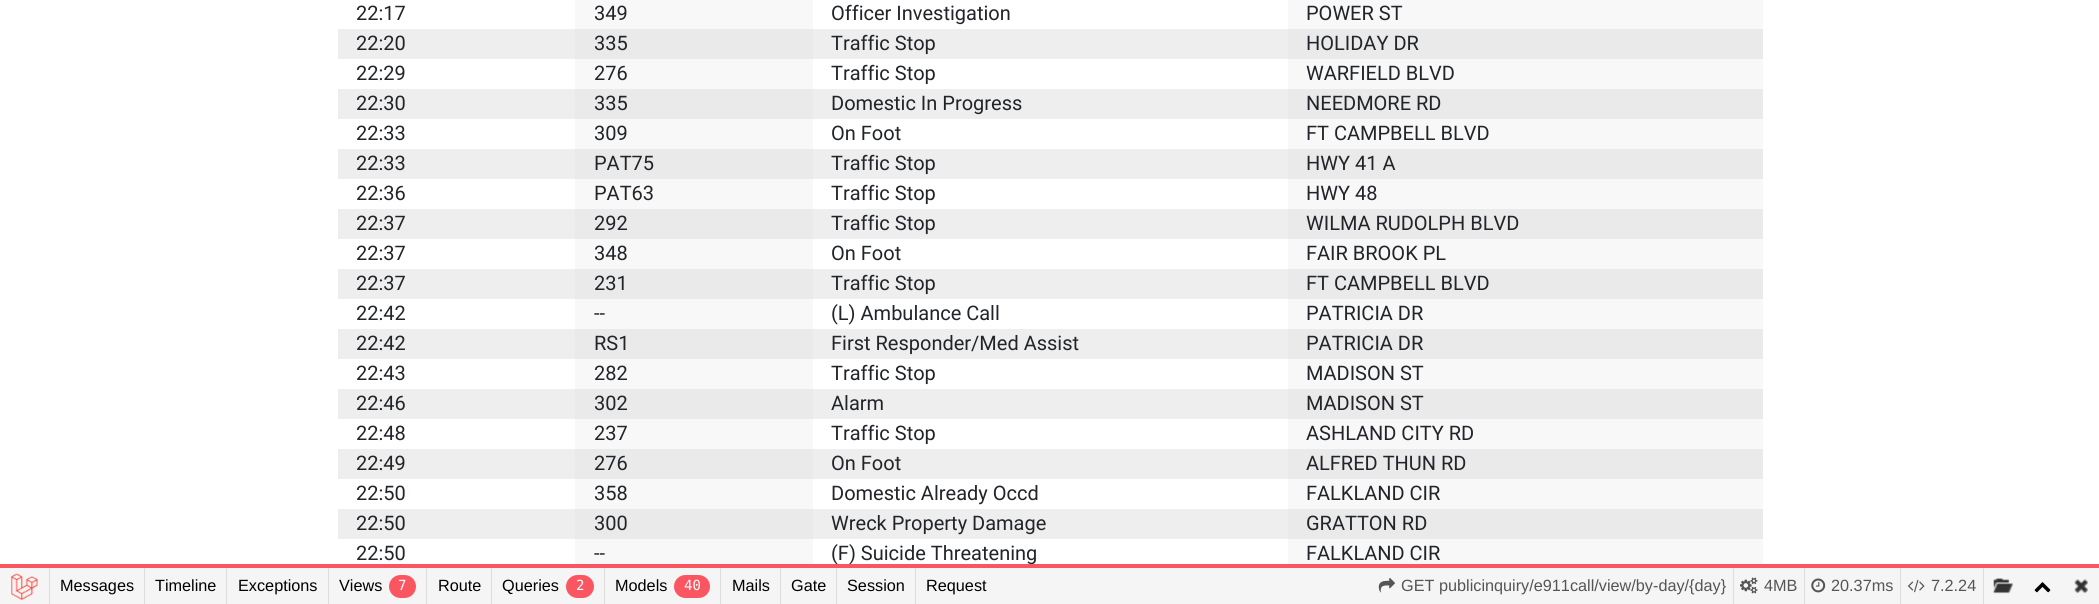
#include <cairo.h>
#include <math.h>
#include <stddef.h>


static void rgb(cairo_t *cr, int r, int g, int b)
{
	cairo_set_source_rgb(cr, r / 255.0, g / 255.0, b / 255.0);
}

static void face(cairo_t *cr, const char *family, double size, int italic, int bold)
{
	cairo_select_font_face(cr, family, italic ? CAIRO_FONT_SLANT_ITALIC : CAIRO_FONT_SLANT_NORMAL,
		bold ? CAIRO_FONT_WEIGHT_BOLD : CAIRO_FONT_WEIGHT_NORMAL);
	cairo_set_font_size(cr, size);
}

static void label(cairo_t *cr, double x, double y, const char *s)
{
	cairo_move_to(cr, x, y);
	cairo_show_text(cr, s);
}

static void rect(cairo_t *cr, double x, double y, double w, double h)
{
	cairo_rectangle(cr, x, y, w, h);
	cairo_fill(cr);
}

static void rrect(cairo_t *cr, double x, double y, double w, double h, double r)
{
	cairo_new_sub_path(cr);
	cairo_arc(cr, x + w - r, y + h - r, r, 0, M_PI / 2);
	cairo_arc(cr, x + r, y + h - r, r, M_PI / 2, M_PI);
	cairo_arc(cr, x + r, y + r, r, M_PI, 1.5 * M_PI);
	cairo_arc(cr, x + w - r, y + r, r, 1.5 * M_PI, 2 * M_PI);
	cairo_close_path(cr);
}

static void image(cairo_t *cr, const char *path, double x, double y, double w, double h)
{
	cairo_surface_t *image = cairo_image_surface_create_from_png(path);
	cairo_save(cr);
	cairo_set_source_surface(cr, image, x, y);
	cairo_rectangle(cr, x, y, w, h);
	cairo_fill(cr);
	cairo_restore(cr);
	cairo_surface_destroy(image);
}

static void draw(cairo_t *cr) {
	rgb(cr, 255, 255, 255);
	cairo_paint(cr);
	face(cr, "Roboto", 20, 0, 0);
	rgb(cr, 33, 37, 41);
	label(cr, 356, 20, "22:17");
	rgb(cr, 248, 248, 248);
	rect(cr, 575, 0, 238, 29);
	rgb(cr, 33, 37, 41);
	label(cr, 594, 20, "349");
	label(cr, 831, 20, "Officer Investigation");
	rgb(cr, 248, 248, 248);
	rect(cr, 1288, 0, 475, 29);
	rgb(cr, 33, 37, 41);
	label(cr, 1306, 20, "POWER ST");
	rgb(cr, 238, 238, 238);
	rect(cr, 338, 29, 950, 30);
	rgb(cr, 33, 37, 41);
	label(cr, 356, 50, "22:20");
	rgb(cr, 234, 234, 234);
	rect(cr, 575, 29, 238, 30);
	rgb(cr, 33, 37, 41);
	label(cr, 594, 50, "335");
	label(cr, 831, 50, "Traffic Stop");
	rgb(cr, 234, 234, 234);
	rect(cr, 1288, 29, 475, 30);
	rgb(cr, 33, 37, 41);
	label(cr, 1306, 50, "HOLIDAY DR");
	label(cr, 356, 80, "22:29");
	rgb(cr, 248, 248, 248);
	rect(cr, 575, 59, 238, 30);
	rgb(cr, 33, 37, 41);
	label(cr, 594, 80, "276");
	label(cr, 831, 80, "Traffic Stop");
	rgb(cr, 248, 248, 248);
	rect(cr, 1288, 59, 475, 30);
	rgb(cr, 33, 37, 41);
	label(cr, 1306, 80, "WARFIELD BLVD");
	rgb(cr, 238, 238, 238);
	rect(cr, 338, 89, 950, 30);
	rgb(cr, 33, 37, 41);
	label(cr, 356, 110, "22:30");
	rgb(cr, 234, 234, 234);
	rect(cr, 575, 89, 238, 30);
	rgb(cr, 33, 37, 41);
	label(cr, 594, 110, "335");
	label(cr, 831, 110, "Domestic In Progress");
	rgb(cr, 234, 234, 234);
	rect(cr, 1288, 89, 475, 30);
	rgb(cr, 33, 37, 41);
	label(cr, 1306, 110, "NEEDMORE RD");
	label(cr, 356, 140, "22:33");
	rgb(cr, 248, 248, 248);
	rect(cr, 575, 119, 238, 30);
	rgb(cr, 33, 37, 41);
	label(cr, 594, 140, "309");
	label(cr, 831, 140, "On Foot");
	rgb(cr, 248, 248, 248);
	rect(cr, 1288, 119, 475, 30);
	rgb(cr, 33, 37, 41);
	label(cr, 1306, 140, "FT CAMPBELL BLVD");
	rgb(cr, 238, 238, 238);
	rect(cr, 338, 149, 950, 30);
	rgb(cr, 33, 37, 41);
	label(cr, 356, 170, "22:33");
	rgb(cr, 234, 234, 234);
	rect(cr, 575, 149, 238, 30);
	rgb(cr, 33, 37, 41);
	label(cr, 594, 170, "PAT75");
	label(cr, 831, 170, "Traffic Stop");
	rgb(cr, 234, 234, 234);
	rect(cr, 1288, 149, 475, 30);
	rgb(cr, 33, 37, 41);
	label(cr, 1306, 170, "HWY 41 A");
	label(cr, 356, 200, "22:36");
	rgb(cr, 248, 248, 248);
	rect(cr, 575, 179, 238, 30);
	rgb(cr, 33, 37, 41);
	label(cr, 594, 200, "PAT63");
	label(cr, 831, 200, "Traffic Stop");
	rgb(cr, 248, 248, 248);
	rect(cr, 1288, 179, 475, 30);
	rgb(cr, 33, 37, 41);
	label(cr, 1306, 200, "HWY 48");
	rgb(cr, 238, 238, 238);
	rect(cr, 338, 209, 950, 30);
	rgb(cr, 33, 37, 41);
	label(cr, 356, 230, "22:37");
	rgb(cr, 234, 234, 234);
	rect(cr, 575, 209, 238, 30);
	rgb(cr, 33, 37, 41);
	label(cr, 594, 230, "292");
	label(cr, 831, 230, "Traffic Stop");
	rgb(cr, 234, 234, 234);
	rect(cr, 1288, 209, 475, 30);
	rgb(cr, 33, 37, 41);
	label(cr, 1306, 230, "WILMA RUDOLPH BLVD");
	label(cr, 356, 260, "22:37");
	rgb(cr, 248, 248, 248);
	rect(cr, 575, 239, 238, 30);
	rgb(cr, 33, 37, 41);
	label(cr, 594, 260, "348");
	label(cr, 831, 260, "On Foot");
	rgb(cr, 248, 248, 248);
	rect(cr, 1288, 239, 475, 30);
	rgb(cr, 33, 37, 41);
	label(cr, 1306, 260, "FAIR BROOK PL");
	rgb(cr, 238, 238, 238);
	rect(cr, 338, 269, 950, 30);
	rgb(cr, 33, 37, 41);
	label(cr, 356, 290, "22:37");
	rgb(cr, 234, 234, 234);
	rect(cr, 575, 269, 238, 30);
	rgb(cr, 33, 37, 41);
	label(cr, 594, 290, "231");
	label(cr, 831, 290, "Traffic Stop");
	rgb(cr, 234, 234, 234);
	rect(cr, 1288, 269, 475, 30);
	rgb(cr, 33, 37, 41);
	label(cr, 1306, 290, "FT CAMPBELL BLVD");
	label(cr, 356, 320, "22:42");
	rgb(cr, 248, 248, 248);
	rect(cr, 575, 299, 238, 30);
	rgb(cr, 33, 37, 41);
	label(cr, 594, 320, "--");
	label(cr, 831, 320, "(L) Ambulance Call");
	rgb(cr, 248, 248, 248);
	rect(cr, 1288, 299, 475, 30);
	rgb(cr, 33, 37, 41);
	label(cr, 1306, 320, "PATRICIA DR");
	rgb(cr, 238, 238, 238);
	rect(cr, 338, 329, 950, 30);
	rgb(cr, 33, 37, 41);
	label(cr, 356, 350, "22:42");
	rgb(cr, 234, 234, 234);
	rect(cr, 575, 329, 238, 30);
	rgb(cr, 33, 37, 41);
	label(cr, 594, 350, "RS1");
	label(cr, 831, 350, "First Responder/Med Assist");
	rgb(cr, 234, 234, 234);
	rect(cr, 1288, 329, 475, 30);
	rgb(cr, 33, 37, 41);
	label(cr, 1306, 350, "PATRICIA DR");
	label(cr, 356, 380, "22:43");
	rgb(cr, 248, 248, 248);
	rect(cr, 575, 359, 238, 30);
	rgb(cr, 33, 37, 41);
	label(cr, 594, 380, "282");
	label(cr, 831, 380, "Traffic Stop");
	rgb(cr, 248, 248, 248);
	rect(cr, 1288, 359, 475, 30);
	rgb(cr, 33, 37, 41);
	label(cr, 1306, 380, "MADISON ST");
	rgb(cr, 238, 238, 238);
	rect(cr, 338, 389, 950, 30);
	rgb(cr, 33, 37, 41);
	label(cr, 356, 410, "22:46");
	rgb(cr, 234, 234, 234);
	rect(cr, 575, 389, 238, 30);
	rgb(cr, 33, 37, 41);
	label(cr, 594, 410, "302");
	label(cr, 831, 410, "Alarm");
	rgb(cr, 234, 234, 234);
	rect(cr, 1288, 389, 475, 30);
	rgb(cr, 33, 37, 41);
	label(cr, 1306, 410, "MADISON ST");
	label(cr, 356, 440, "22:48");
	rgb(cr, 248, 248, 248);
	rect(cr, 575, 419, 238, 30);
	rgb(cr, 33, 37, 41);
	label(cr, 594, 440, "237");
	label(cr, 831, 440, "Traffic Stop");
	rgb(cr, 248, 248, 248);
	rect(cr, 1288, 419, 475, 30);
	rgb(cr, 33, 37, 41);
	label(cr, 1306, 440, "ASHLAND CITY RD");
	rgb(cr, 238, 238, 238);
	rect(cr, 338, 449, 950, 30);
	rgb(cr, 33, 37, 41);
	label(cr, 356, 470, "22:49");
	rgb(cr, 234, 234, 234);
	rect(cr, 575, 449, 238, 30);
	rgb(cr, 33, 37, 41);
	label(cr, 594, 470, "276");
	label(cr, 831, 470, "On Foot");
	rgb(cr, 234, 234, 234);
	rect(cr, 1288, 449, 475, 30);
	rgb(cr, 33, 37, 41);
	label(cr, 1306, 470, "ALFRED THUN RD");
	label(cr, 356, 500, "22:50");
	rgb(cr, 248, 248, 248);
	rect(cr, 575, 479, 238, 30);
	rgb(cr, 33, 37, 41);
	label(cr, 594, 500, "358");
	label(cr, 831, 500, "Domestic Already Occd");
	rgb(cr, 248, 248, 248);
	rect(cr, 1288, 479, 475, 30);
	rgb(cr, 33, 37, 41);
	label(cr, 1306, 500, "FALKLAND CIR");
	rgb(cr, 238, 238, 238);
	rect(cr, 338, 509, 950, 30);
	rgb(cr, 33, 37, 41);
	label(cr, 356, 530, "22:50");
	rgb(cr, 234, 234, 234);
	rect(cr, 575, 509, 238, 30);
	rgb(cr, 33, 37, 41);
	label(cr, 594, 530, "300");
	label(cr, 831, 530, "Wreck Property Damage");
	rgb(cr, 234, 234, 234);
	rect(cr, 1288, 509, 475, 30);
	rgb(cr, 33, 37, 41);
	label(cr, 1306, 530, "GRATTON RD");
	label(cr, 356, 560, "22:50");
	rgb(cr, 248, 248, 248);
	rect(cr, 575, 539, 238, 25);
	rgb(cr, 33, 37, 41);
	label(cr, 594, 560, "--");
	label(cr, 831, 560, "(F) Suicide Threatening");
	rgb(cr, 248, 248, 248);
	rect(cr, 1288, 539, 475, 25);
	rgb(cr, 33, 37, 41);
	label(cr, 1306, 560, "FALKLAND CIR");
	rgb(cr, 250, 86, 97);
	rect(cr, 0, 564, 2099, 4);
	rgb(cr, 245, 245, 245);
	rect(cr, 0, 568, 2099, 36);
	image(cr, "image0.png", 11, 573, 27, 28);
	rgb(cr, 221, 221, 221);
	rect(cr, 49, 568, 1, 36);
	face(cr, "Liberation Sans", 16.25, 0, 0);
	rgb(cr, 0, 0, 0);
	label(cr, 60, 591, "Messages");
	rgb(cr, 221, 221, 221);
	rect(cr, 144, 568, 1, 36);
	rgb(cr, 0, 0, 0);
	label(cr, 155, 591, "Timeline");
	rgb(cr, 221, 221, 221);
	rect(cr, 226, 568, 1, 36);
	rgb(cr, 0, 0, 0);
	label(cr, 238, 591, "Exceptions");
	rgb(cr, 221, 221, 221);
	rect(cr, 328, 568, 1, 36);
	rgb(cr, 0, 0, 0);
	label(cr, 339, 591, "Views");
	rgb(cr, 250, 86, 97);
	rrect(cr, 389, 575, 27, 23, 11.5);
	cairo_fill(cr);
	face(cr, "DejaVu Sans Mono", 14, 0, 0);
	rgb(cr, 255, 255, 255);
	label(cr, 398, 590, "7");
	rgb(cr, 221, 221, 221);
	rect(cr, 426, 568, 1, 36);
	face(cr, "Liberation Sans", 16.25, 0, 0);
	rgb(cr, 0, 0, 0);
	label(cr, 438, 591, "Route");
	rgb(cr, 221, 221, 221);
	rect(cr, 491, 568, 1, 36);
	rgb(cr, 0, 0, 0);
	label(cr, 502, 591, "Queries");
	rgb(cr, 250, 86, 97);
	rrect(cr, 566, 575, 28, 23, 11.5);
	cairo_fill(cr);
	face(cr, "DejaVu Sans Mono", 14, 0, 0);
	rgb(cr, 255, 255, 255);
	label(cr, 576, 590, "2");
	rgb(cr, 221, 221, 221);
	rect(cr, 604, 568, 1, 36);
	face(cr, "Liberation Sans", 16.25, 0, 0);
	rgb(cr, 0, 0, 0);
	label(cr, 615, 591, "Models");
	rgb(cr, 250, 86, 97);
	rrect(cr, 674, 575, 36, 23, 11.5);
	cairo_fill(cr);
	face(cr, "DejaVu Sans Mono", 14, 0, 0);
	rgb(cr, 255, 255, 255);
	label(cr, 684, 590, "40");
	rgb(cr, 221, 221, 221);
	rect(cr, 720, 568, 1, 36);
	face(cr, "Liberation Sans", 16.25, 0, 0);
	rgb(cr, 0, 0, 0);
	label(cr, 732, 591, "Mails");
	rgb(cr, 221, 221, 221);
	rect(cr, 780, 568, 1, 36);
	rgb(cr, 0, 0, 0);
	label(cr, 791, 591, "Gate");
	rgb(cr, 221, 221, 221);
	rect(cr, 836, 568, 1, 36);
	rgb(cr, 0, 0, 0);
	label(cr, 847, 591, "Session");
	rgb(cr, 221, 221, 221);
	rect(cr, 915, 568, 1, 36);
	rgb(cr, 0, 0, 0);
	label(cr, 926, 591, "Request");
	rgb(cr, 221, 221, 221);
	rect(cr, 1733, 568, 1, 36);
	image(cr, "image1.png", 1378, 578, 17, 15);
	rgb(cr, 85, 85, 85);
	label(cr, 1401, 591, "GET publicinquiry/e911call/view/by-day/{day}");
	rgb(cr, 221, 221, 221);
	rect(cr, 1804, 568, 1, 36);
	image(cr, "image2.png", 1740, 577, 18, 17);
	rgb(cr, 85, 85, 85);
	label(cr, 1764, 591, "4MB");
	rgb(cr, 221, 221, 221);
	rect(cr, 1900, 568, 1, 36);
	image(cr, "image3.png", 1811, 578, 15, 15);
	rgb(cr, 85, 85, 85);
	label(cr, 1831, 591, "20.37ms");
	rgb(cr, 221, 221, 221);
	rect(cr, 1983, 568, 1, 36);
	image(cr, "image4.png", 1908, 579, 17, 14);
	rgb(cr, 85, 85, 85);
	label(cr, 1931, 591, "7.2.24");
	image(cr, "image5.png", 1993, 578, 20, 16);
	image(cr, "image6.png", 2034, 582, 17, 11);
	image(cr, "image7.png", 2074, 579, 14, 15);
}

int main(void) {
	cairo_surface_t *surface = cairo_image_surface_create(CAIRO_FORMAT_RGB24, 2099, 604);
	cairo_t *cr = cairo_create(surface);
	cairo_font_options_t *options = cairo_font_options_create();
	cairo_font_options_set_hint_metrics(options, CAIRO_HINT_METRICS_OFF);
	cairo_font_options_set_hint_style(options, CAIRO_HINT_STYLE_NONE);
	cairo_set_font_options(cr, options);
	cairo_set_miter_limit(cr, 4);
	draw(cr);
	cairo_surface_write_to_png(surface, "render.png");
	cairo_font_options_destroy(options);
	cairo_destroy(cr);
	cairo_surface_destroy(surface);
	return 0;
}
